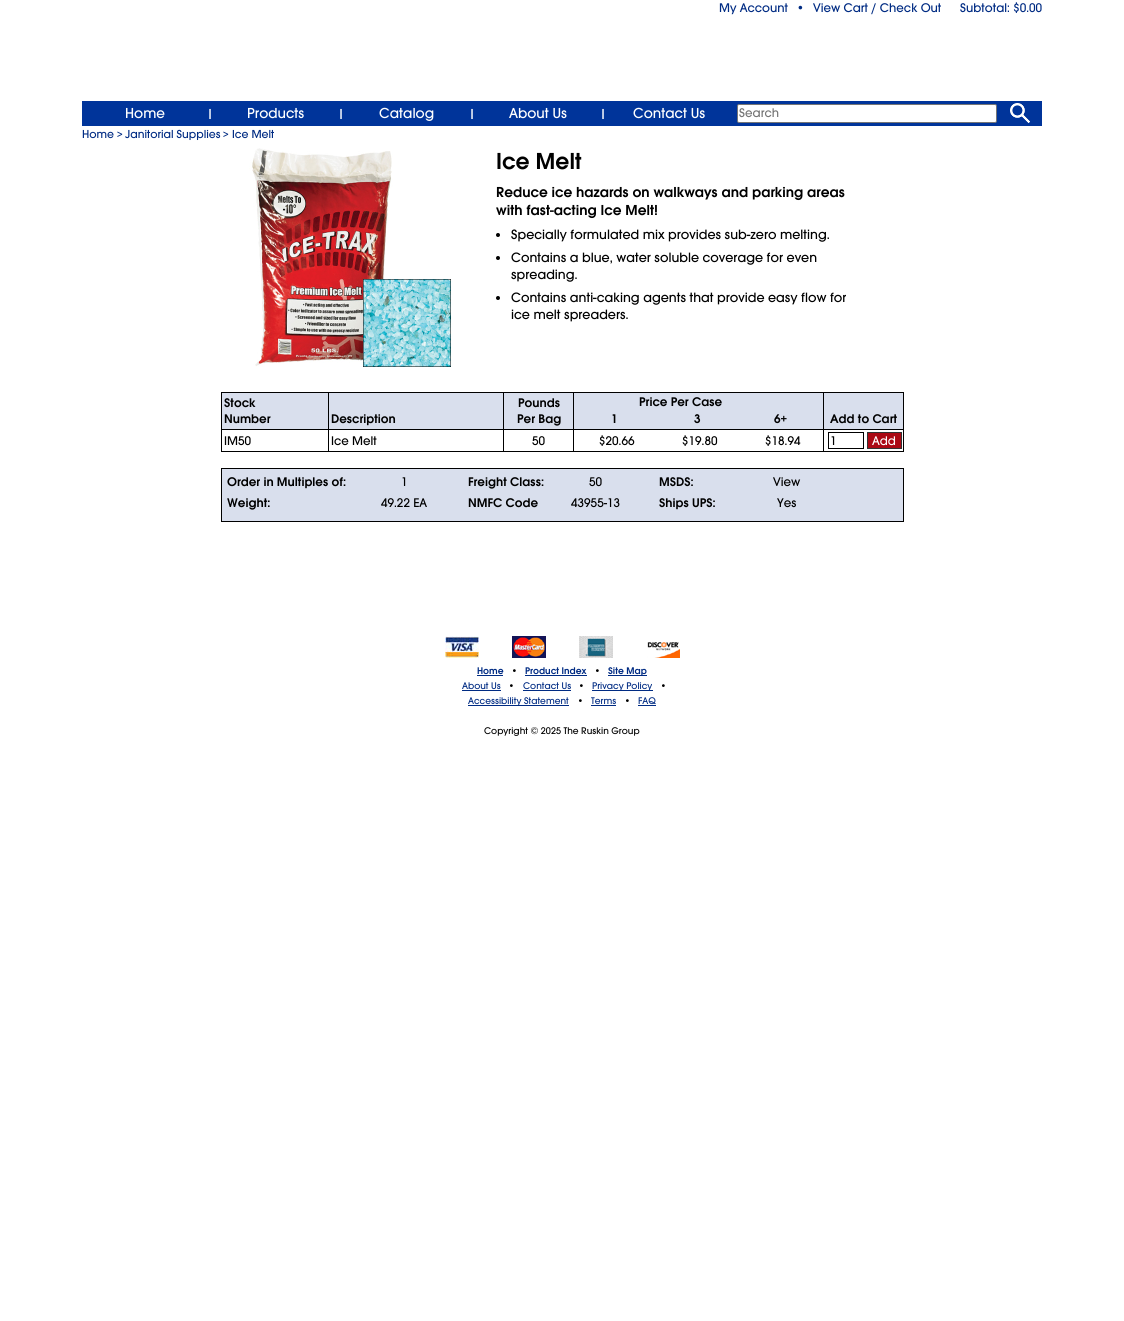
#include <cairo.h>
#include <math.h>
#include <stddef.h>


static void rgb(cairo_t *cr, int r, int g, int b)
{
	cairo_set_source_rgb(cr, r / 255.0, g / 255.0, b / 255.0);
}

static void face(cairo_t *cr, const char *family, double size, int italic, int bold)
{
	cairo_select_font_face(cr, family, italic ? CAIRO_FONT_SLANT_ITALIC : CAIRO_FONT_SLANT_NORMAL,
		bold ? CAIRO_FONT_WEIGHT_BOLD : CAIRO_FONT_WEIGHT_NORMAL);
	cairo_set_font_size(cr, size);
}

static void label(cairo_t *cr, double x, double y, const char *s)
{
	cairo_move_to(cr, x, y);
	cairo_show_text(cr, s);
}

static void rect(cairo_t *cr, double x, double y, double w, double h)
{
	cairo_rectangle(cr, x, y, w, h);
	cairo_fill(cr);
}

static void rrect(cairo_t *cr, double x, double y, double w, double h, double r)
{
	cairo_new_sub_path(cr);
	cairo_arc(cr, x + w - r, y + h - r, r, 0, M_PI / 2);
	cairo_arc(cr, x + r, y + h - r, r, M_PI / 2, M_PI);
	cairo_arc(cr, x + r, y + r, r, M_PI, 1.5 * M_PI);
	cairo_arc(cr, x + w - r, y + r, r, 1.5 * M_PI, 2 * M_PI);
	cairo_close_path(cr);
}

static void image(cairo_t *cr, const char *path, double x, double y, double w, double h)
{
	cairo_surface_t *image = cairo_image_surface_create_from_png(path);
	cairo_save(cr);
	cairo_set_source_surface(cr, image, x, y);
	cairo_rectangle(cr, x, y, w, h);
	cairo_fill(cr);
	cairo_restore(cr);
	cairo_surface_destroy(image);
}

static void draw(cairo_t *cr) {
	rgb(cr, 255, 255, 255);
	cairo_paint(cr);
	face(cr, "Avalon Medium", 13, 0, 0);
	rgb(cr, 0, 43, 131);
	label(cr, 719, 12, "My Account");
	label(cr, 796, 12, "•");
	label(cr, 813, 12, "View Cart / Check Out");
	label(cr, 960, 12, "Subtotal: $0.00");
	rgb(cr, 0, 52, 154);
	rect(cr, 82, 101, 960, 25);
	face(cr, "Avalon Medium", 15, 0, 0);
	rgb(cr, 255, 255, 255);
	label(cr, 125, 118, "Home");
	face(cr, "Avalon SemiBold", 12, 0, 0);
	label(cr, 207, 117, "|");
	face(cr, "Avalon Medium", 15, 0, 0);
	label(cr, 247, 118, "Products");
	face(cr, "Avalon SemiBold", 12, 0, 0);
	label(cr, 338, 117, "|");
	face(cr, "Avalon Medium", 15, 0, 0);
	label(cr, 379, 118, "Catalog");
	face(cr, "Avalon SemiBold", 12, 0, 0);
	label(cr, 469, 117, "|");
	face(cr, "Avalon Medium", 15, 0, 0);
	label(cr, 509, 118, "About Us");
	face(cr, "Avalon SemiBold", 12, 0, 0);
	label(cr, 600, 117, "|");
	face(cr, "Avalon Medium", 15, 0, 0);
	label(cr, 633, 118, "Contact Us");
	rrect(cr, 737.5, 104.5, 259, 18, 1.5);
	cairo_fill_preserve(cr);
	rgb(cr, 118, 118, 118);
	cairo_set_line_width(cr, 1);
	cairo_stroke(cr);
	face(cr, "Avalon Medium", 13, 0, 0);
	rgb(cr, 117, 117, 117);
	label(cr, 739, 117, "Search");
	image(cr, "image0.png", 1010, 103, 20, 20);
	face(cr, "Avalon Medium", 12, 0, 0);
	rgb(cr, 0, 43, 131);
	label(cr, 82, 138, "Home");
	face(cr, "Avalon Medium", 11, 0, 0);
	label(cr, 117, 138, ">");
	face(cr, "Avalon Medium", 12, 0, 0);
	label(cr, 125, 138, "Janitorial Supplies");
	face(cr, "Avalon Medium", 11, 0, 0);
	label(cr, 223, 138, ">");
	face(cr, "Avalon Medium", 12, 0, 0);
	label(cr, 232, 138, "Ice Melt");
	image(cr, "image1.png", 249, 148, 204, 219);
	face(cr, "Avalon SemiBold", 24, 0, 0);
	rgb(cr, 0, 0, 0);
	label(cr, 496, 169, "Ice Melt");
	face(cr, "Avalon SemiBold", 15, 0, 0);
	label(cr, 496, 197, "Reduce ice hazards on walkways and parking areas");
	label(cr, 496, 215, "with fast-acting Ice Melt!");
	cairo_new_path(cr);
	cairo_arc(cr, 498, 235, 2, 0, 2 * M_PI);
	cairo_fill(cr);
	face(cr, "Avalon Medium", 14, 0, 0);
	label(cr, 511, 239, "Specially formulated mix provides sub-zero melting.");
	cairo_new_path(cr);
	cairo_arc(cr, 498, 258, 2, 0, 2 * M_PI);
	cairo_fill(cr);
	label(cr, 511, 262, "Contains a blue, water soluble coverage for even");
	label(cr, 511, 279, "spreading.");
	cairo_new_path(cr);
	cairo_arc(cr, 498, 298, 2, 0, 2 * M_PI);
	cairo_fill(cr);
	label(cr, 511, 302, "Contains anti-caking agents that provide easy flow for");
	label(cr, 511, 319, "ice melt spreaders.");
	rect(cr, 221, 392, 683, 1);
	rect(cr, 903, 393, 1, 58);
	rect(cr, 221, 393, 1, 58);
	rgb(cr, 217, 223, 237);
	rect(cr, 222, 393, 106, 36);
	rgb(cr, 0, 0, 0);
	rect(cr, 573, 429, 1, 23);
	rect(cr, 823, 393, 1, 59);
	rect(cr, 573, 429, 331, 1);
	rect(cr, 573, 393, 1, 37);
	rect(cr, 503, 429, 1, 23);
	rect(cr, 503, 429, 71, 1);
	rect(cr, 503, 393, 1, 37);
	rect(cr, 328, 429, 1, 23);
	rect(cr, 328, 429, 176, 1);
	rect(cr, 328, 393, 1, 37);
	rect(cr, 221, 429, 108, 1);
	face(cr, "Avalon SemiBold", 13, 0, 0);
	label(cr, 224, 407, "Stock");
	label(cr, 224, 423, "Number");
	rgb(cr, 217, 223, 237);
	rect(cr, 329, 393, 174, 36);
	rgb(cr, 0, 0, 0);
	label(cr, 331, 423, "Description");
	rgb(cr, 217, 223, 237);
	rect(cr, 504, 393, 69, 36);
	rgb(cr, 0, 0, 0);
	label(cr, 518, 407, "Pounds");
	label(cr, 517, 423, "Per Bag");
	rgb(cr, 217, 223, 237);
	rect(cr, 574, 393, 249, 17);
	rgb(cr, 0, 0, 0);
	label(cr, 639, 406, "Price Per Case");
	rgb(cr, 217, 223, 237);
	rect(cr, 824, 393, 79, 36);
	rgb(cr, 0, 0, 0);
	label(cr, 830, 423, "Add to Cart");
	rgb(cr, 217, 223, 237);
	rect(cr, 574, 410, 249, 19);
	rgb(cr, 0, 0, 0);
	label(cr, 611, 423, "1");
	label(cr, 694, 423, "3");
	label(cr, 774, 423, "6+");
	face(cr, "Avalon Medium", 13, 0, 0);
	label(cr, 224, 445, "IM50");
	label(cr, 331, 445, "Ice Melt");
	label(cr, 532, 445, "50");
	label(cr, 599, 445, "$20.66");
	label(cr, 682, 445, "$19.80");
	label(cr, 765, 445, "$18.94");
	cairo_rectangle(cr, 828.5, 432.5, 35, 16);
	cairo_stroke(cr);
	label(cr, 830, 445, "1");
	rgb(cr, 171, 9, 20);
	cairo_rectangle(cr, 867.5, 432.5, 34, 16);
	cairo_fill_preserve(cr);
	rgb(cr, 51, 51, 51);
	cairo_stroke(cr);
	rgb(cr, 255, 255, 255);
	label(cr, 872, 445, "Add");
	rgb(cr, 0, 0, 0);
	rect(cr, 221, 451, 683, 1);
	rgb(cr, 217, 223, 237);
	cairo_rectangle(cr, 221.5, 468.5, 682, 53);
	cairo_fill_preserve(cr);
	rgb(cr, 0, 0, 0);
	cairo_stroke(cr);
	face(cr, "Avalon SemiBold", 13, 0, 0);
	label(cr, 227, 486, "Order in Multiples of:");
	face(cr, "Avalon Medium", 13, 0, 0);
	label(cr, 401, 486, "1");
	face(cr, "Avalon SemiBold", 13, 0, 0);
	label(cr, 468, 486, "Freight Class:");
	face(cr, "Avalon Medium", 13, 0, 0);
	label(cr, 589, 486, "50");
	face(cr, "Avalon SemiBold", 13, 0, 0);
	label(cr, 659, 486, "MSDS:");
	face(cr, "Avalon Medium", 13, 0, 0);
	label(cr, 773, 486, "View");
	face(cr, "Avalon SemiBold", 13, 0, 0);
	label(cr, 227, 507, "Weight:");
	face(cr, "Avalon Medium", 13, 0, 0);
	label(cr, 381, 507, "49.22 EA");
	face(cr, "Avalon SemiBold", 13, 0, 0);
	label(cr, 468, 507, "NMFC Code");
	face(cr, "Avalon Medium", 13, 0, 0);
	label(cr, 571, 507, "43955-13");
	face(cr, "Avalon SemiBold", 13, 0, 0);
	label(cr, 659, 507, "Ships UPS:");
	face(cr, "Avalon Medium", 13, 0, 0);
	label(cr, 777, 507, "Yes");
	image(cr, "image2.png", 445, 636, 34, 22);
	image(cr, "image3.png", 512, 636, 34, 22);
	image(cr, "image4.png", 579, 636, 34, 22);
	image(cr, "image5.png", 647, 642, 33, 16);
	face(cr, "Avalon SemiBold", 10, 0, 0);
	rgb(cr, 0, 43, 131);
	label(cr, 477, 674, "Home");
	rect(cr, 477, 675, 26, 1);
	face(cr, "Avalon Medium", 10, 0, 0);
	rgb(cr, 0, 0, 0);
	label(cr, 511, 674, "•");
	face(cr, "Avalon SemiBold", 10, 0, 0);
	rgb(cr, 0, 43, 131);
	label(cr, 525, 674, "Product Index");
	rect(cr, 525, 675, 62, 1);
	face(cr, "Avalon Medium", 10, 0, 0);
	rgb(cr, 0, 0, 0);
	label(cr, 594, 674, "•");
	rgb(cr, 0, 43, 131);
	rect(cr, 608, 675, 39, 1);
	face(cr, "Avalon SemiBold", 10, 0, 0);
	label(cr, 608, 674, "Site Map");
	face(cr, "Avalon Medium", 10, 0, 0);
	label(cr, 462, 689, "About Us");
	rect(cr, 462, 690, 39, 1);
	rgb(cr, 0, 0, 0);
	label(cr, 508, 689, "•");
	rgb(cr, 0, 43, 131);
	label(cr, 523, 689, "Contact Us");
	rect(cr, 523, 690, 48, 1);
	rgb(cr, 0, 0, 0);
	label(cr, 578, 689, "•");
	rgb(cr, 0, 43, 131);
	rect(cr, 592, 690, 61, 1);
	label(cr, 592, 689, "Privacy Policy");
	rgb(cr, 0, 0, 0);
	label(cr, 660, 689, "•");
	rgb(cr, 0, 43, 131);
	rect(cr, 468, 705, 101, 1);
	label(cr, 468, 704, "Accessibility Statement");
	rgb(cr, 0, 0, 0);
	label(cr, 577, 704, "•");
	rgb(cr, 0, 43, 131);
	label(cr, 591, 704, "Terms");
	rect(cr, 591, 705, 25, 1);
	rgb(cr, 0, 0, 0);
	label(cr, 624, 704, "•");
	rgb(cr, 0, 43, 131);
	label(cr, 638, 704, "FAQ");
	rect(cr, 638, 705, 18, 1);
	rgb(cr, 0, 0, 0);
	label(cr, 484, 734, "Copyright © 2025 The Ruskin Group");
}

int main(void) {
	cairo_surface_t *surface = cairo_image_surface_create(CAIRO_FORMAT_RGB24, 1124, 1321);
	cairo_t *cr = cairo_create(surface);
	cairo_font_options_t *options = cairo_font_options_create();
	cairo_font_options_set_hint_metrics(options, CAIRO_HINT_METRICS_OFF);
	cairo_font_options_set_hint_style(options, CAIRO_HINT_STYLE_NONE);
	cairo_set_font_options(cr, options);
	cairo_set_miter_limit(cr, 4);
	draw(cr);
	cairo_surface_write_to_png(surface, "render.png");
	cairo_font_options_destroy(options);
	cairo_destroy(cr);
	cairo_surface_destroy(surface);
	return 0;
}
